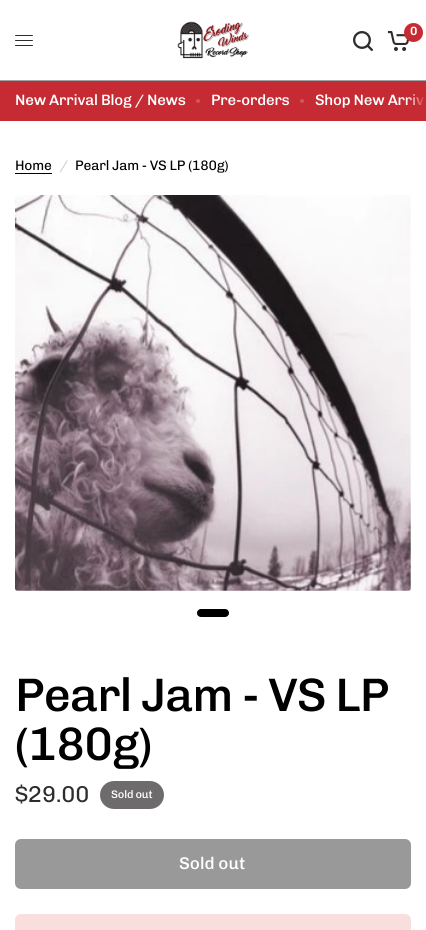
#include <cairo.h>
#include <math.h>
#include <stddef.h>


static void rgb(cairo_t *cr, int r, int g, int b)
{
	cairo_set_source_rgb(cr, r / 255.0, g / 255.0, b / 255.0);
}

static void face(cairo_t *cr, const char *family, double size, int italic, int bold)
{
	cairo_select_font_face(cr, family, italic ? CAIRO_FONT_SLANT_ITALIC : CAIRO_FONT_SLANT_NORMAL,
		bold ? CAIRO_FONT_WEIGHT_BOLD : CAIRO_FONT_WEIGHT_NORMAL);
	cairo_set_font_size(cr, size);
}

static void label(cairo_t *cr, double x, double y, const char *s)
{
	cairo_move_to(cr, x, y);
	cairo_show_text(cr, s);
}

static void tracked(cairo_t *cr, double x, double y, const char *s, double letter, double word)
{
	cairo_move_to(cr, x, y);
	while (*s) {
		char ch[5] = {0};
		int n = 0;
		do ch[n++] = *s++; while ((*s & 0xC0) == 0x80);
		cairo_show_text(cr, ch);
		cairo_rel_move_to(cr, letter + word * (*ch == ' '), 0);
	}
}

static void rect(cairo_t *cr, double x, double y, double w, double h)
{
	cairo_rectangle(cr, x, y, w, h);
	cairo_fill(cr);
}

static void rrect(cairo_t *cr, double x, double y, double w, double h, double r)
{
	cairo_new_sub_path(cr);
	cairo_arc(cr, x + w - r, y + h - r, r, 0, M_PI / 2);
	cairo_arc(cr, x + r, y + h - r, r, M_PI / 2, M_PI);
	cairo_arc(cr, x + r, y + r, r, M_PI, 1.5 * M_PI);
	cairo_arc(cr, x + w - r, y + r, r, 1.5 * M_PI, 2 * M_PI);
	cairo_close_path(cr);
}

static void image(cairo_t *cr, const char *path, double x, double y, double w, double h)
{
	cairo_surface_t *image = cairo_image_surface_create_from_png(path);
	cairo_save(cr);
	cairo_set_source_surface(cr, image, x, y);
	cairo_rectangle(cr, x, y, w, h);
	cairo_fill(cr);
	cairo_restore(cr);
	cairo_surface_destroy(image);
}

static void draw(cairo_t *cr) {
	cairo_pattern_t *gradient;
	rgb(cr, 255, 255, 255);
	cairo_paint(cr);
	image(cr, "image0.png", 177, 21, 73, 38);
	image(cr, "image1.png", 353, 31, 20, 20);
	image(cr, "image2.png", 387, 31, 22, 20);
	rgb(cr, 198, 42, 50);
	cairo_arc(cr, 413.5, 32.5, 9.5, 0, 2 * M_PI);
	cairo_fill(cr);
	face(cr, "Chivo SemiBold", 12, 0, 0);
	rgb(cr, 255, 255, 255);
	tracked(cr, 410, 35, "0", -0.2, 0);
	rgb(cr, 44, 45, 46);
	rrect(cr, 15, 35, 18, 1, 0.5);
	cairo_fill(cr);
	rrect(cr, 15, 40, 18, 1, 0.5);
	cairo_fill(cr);
	rrect(cr, 15, 45, 18, 1, 0.5);
	cairo_fill(cr);
	rgb(cr, 159, 163, 167);
	rect(cr, 0, 80, 426, 1);
	rgb(cr, 198, 42, 50);
	rect(cr, 0, 81, 426, 40);
	face(cr, "Chivo Medium", 15, 0, 0);
	rgb(cr, 255, 255, 255);
	tracked(cr, 15, 105, "New Arrival Blog / News", -0.2, 0);
	rgb(cr, 209, 85, 91);
	cairo_new_path(cr);
	cairo_arc(cr, 198, 101, 2, 0, 2 * M_PI);
	cairo_fill(cr);
	rgb(cr, 255, 255, 255);
	tracked(cr, 211, 105, "Pre-orders", -0.2, 0);
	rgb(cr, 209, 85, 91);
	cairo_new_path(cr);
	cairo_arc(cr, 302, 101, 2, 0, 2 * M_PI);
	cairo_fill(cr);
	rgb(cr, 255, 255, 255);
	tracked(cr, 315, 105, "Shop New Arriv", -0.2, 0);
	gradient = cairo_pattern_create_linear(406, 101, 426, 101);
	cairo_pattern_add_color_stop_rgba(gradient, 0, 0.776, 0.165, 0.196, 0);
	cairo_pattern_add_color_stop_rgba(gradient, 1, 0.776, 0.165, 0.196, 1);
	cairo_set_source(cr, gradient);
	cairo_pattern_destroy(gradient);
	rect(cr, 406, 94, 18, 11);
	face(cr, "Chivo", 13.75, 0, 0);
	rgb(cr, 0, 0, 0);
	tracked(cr, 15, 170, "Home", -0.2, 0);
	rect(cr, 15, 173, 37, 1);
	face(cr, "Chivo", 13.75, 1, 0);
	rgb(cr, 204, 204, 204);
	tracked(cr, 60, 170, "/", -0.2, 0);
	face(cr, "Chivo", 13.75, 0, 0);
	rgb(cr, 0, 0, 0);
	tracked(cr, 75, 170, "Pearl Jam - VS LP (180g)", -0.2, 0);
	image(cr, "image3.png", 15, 195, 396, 396);
	rrect(cr, 197, 609, 32, 8, 4);
	cairo_fill(cr);
	face(cr, "Chivo Medium", 47, 0, 0);
	tracked(cr, 15, 711, "Pearl Jam - VS LP", -0.9, 0);
	tracked(cr, 15, 760, "(180g)", -0.9, 0);
	face(cr, "Chivo", 23, 0, 0);
	rgb(cr, 44, 45, 46);
	tracked(cr, 15, 802, "$29.00", -0.2, 0);
	rgb(cr, 109, 107, 107);
	rrect(cr, 100, 781, 64, 28, 14);
	cairo_fill(cr);
	face(cr, "Chivo Medium", 11, 0, 0);
	rgb(cr, 255, 255, 255);
	tracked(cr, 111, 798, "Sold out", -0.2, 0);
	rgb(cr, 153, 153, 153);
	rrect(cr, 15, 839, 396, 50, 6);
	cairo_fill(cr);
	face(cr, "Chivo Medium", 17, 0, 0);
	rgb(cr, 255, 255, 255);
	label(cr, 179, 869, "Sold out");
	rgb(cr, 249, 222, 222);
	rrect(cr, 15, 914, 396, 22, 6);
	cairo_fill(cr);
}

int main(void) {
	cairo_surface_t *surface = cairo_image_surface_create(CAIRO_FORMAT_RGB24, 426, 930);
	cairo_t *cr = cairo_create(surface);
	cairo_font_options_t *options = cairo_font_options_create();
	cairo_font_options_set_hint_metrics(options, CAIRO_HINT_METRICS_OFF);
	cairo_font_options_set_hint_style(options, CAIRO_HINT_STYLE_NONE);
	cairo_set_font_options(cr, options);
	cairo_set_miter_limit(cr, 4);
	draw(cr);
	cairo_surface_write_to_png(surface, "render.png");
	cairo_font_options_destroy(options);
	cairo_destroy(cr);
	cairo_surface_destroy(surface);
	return 0;
}
